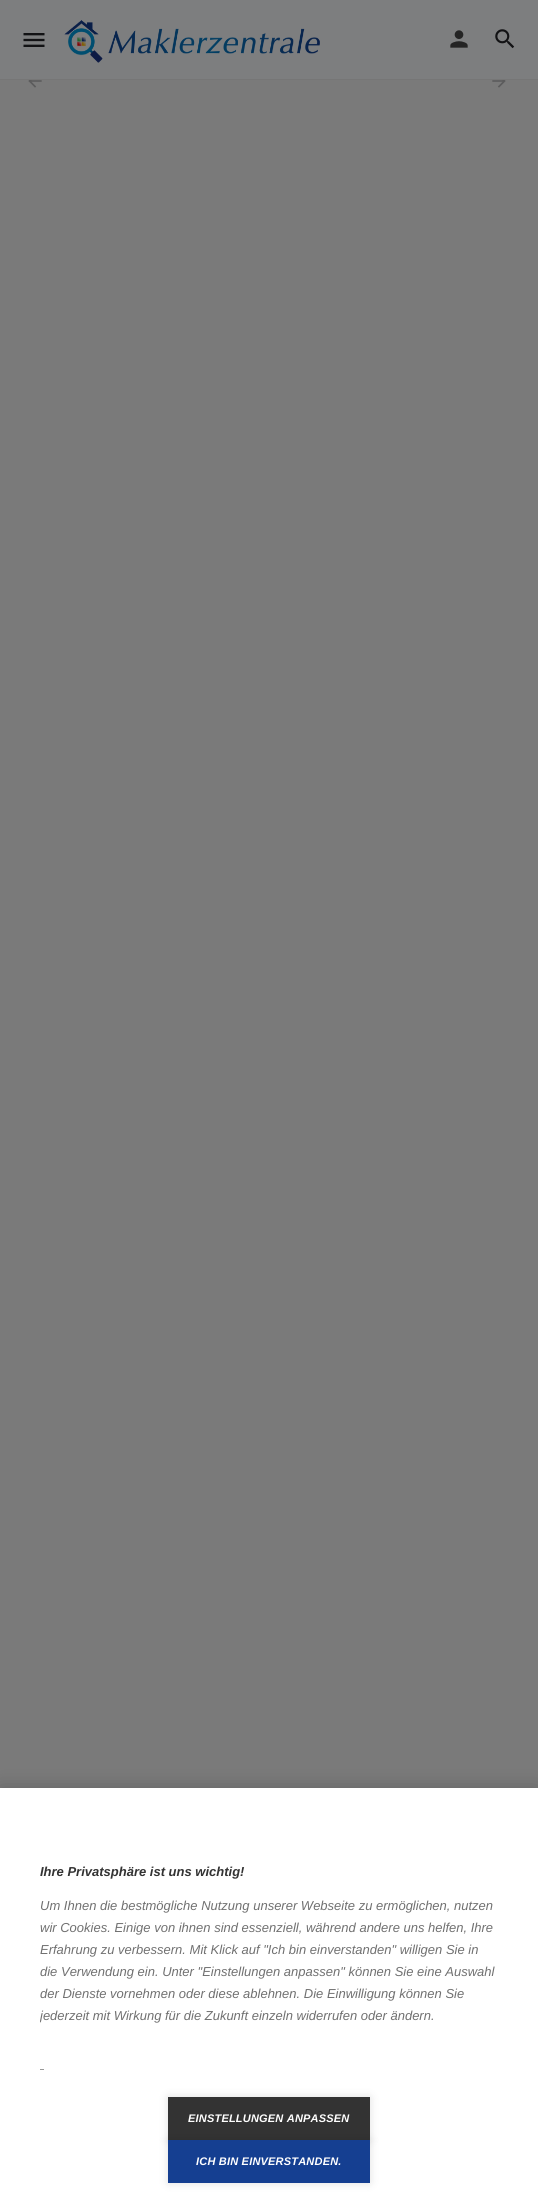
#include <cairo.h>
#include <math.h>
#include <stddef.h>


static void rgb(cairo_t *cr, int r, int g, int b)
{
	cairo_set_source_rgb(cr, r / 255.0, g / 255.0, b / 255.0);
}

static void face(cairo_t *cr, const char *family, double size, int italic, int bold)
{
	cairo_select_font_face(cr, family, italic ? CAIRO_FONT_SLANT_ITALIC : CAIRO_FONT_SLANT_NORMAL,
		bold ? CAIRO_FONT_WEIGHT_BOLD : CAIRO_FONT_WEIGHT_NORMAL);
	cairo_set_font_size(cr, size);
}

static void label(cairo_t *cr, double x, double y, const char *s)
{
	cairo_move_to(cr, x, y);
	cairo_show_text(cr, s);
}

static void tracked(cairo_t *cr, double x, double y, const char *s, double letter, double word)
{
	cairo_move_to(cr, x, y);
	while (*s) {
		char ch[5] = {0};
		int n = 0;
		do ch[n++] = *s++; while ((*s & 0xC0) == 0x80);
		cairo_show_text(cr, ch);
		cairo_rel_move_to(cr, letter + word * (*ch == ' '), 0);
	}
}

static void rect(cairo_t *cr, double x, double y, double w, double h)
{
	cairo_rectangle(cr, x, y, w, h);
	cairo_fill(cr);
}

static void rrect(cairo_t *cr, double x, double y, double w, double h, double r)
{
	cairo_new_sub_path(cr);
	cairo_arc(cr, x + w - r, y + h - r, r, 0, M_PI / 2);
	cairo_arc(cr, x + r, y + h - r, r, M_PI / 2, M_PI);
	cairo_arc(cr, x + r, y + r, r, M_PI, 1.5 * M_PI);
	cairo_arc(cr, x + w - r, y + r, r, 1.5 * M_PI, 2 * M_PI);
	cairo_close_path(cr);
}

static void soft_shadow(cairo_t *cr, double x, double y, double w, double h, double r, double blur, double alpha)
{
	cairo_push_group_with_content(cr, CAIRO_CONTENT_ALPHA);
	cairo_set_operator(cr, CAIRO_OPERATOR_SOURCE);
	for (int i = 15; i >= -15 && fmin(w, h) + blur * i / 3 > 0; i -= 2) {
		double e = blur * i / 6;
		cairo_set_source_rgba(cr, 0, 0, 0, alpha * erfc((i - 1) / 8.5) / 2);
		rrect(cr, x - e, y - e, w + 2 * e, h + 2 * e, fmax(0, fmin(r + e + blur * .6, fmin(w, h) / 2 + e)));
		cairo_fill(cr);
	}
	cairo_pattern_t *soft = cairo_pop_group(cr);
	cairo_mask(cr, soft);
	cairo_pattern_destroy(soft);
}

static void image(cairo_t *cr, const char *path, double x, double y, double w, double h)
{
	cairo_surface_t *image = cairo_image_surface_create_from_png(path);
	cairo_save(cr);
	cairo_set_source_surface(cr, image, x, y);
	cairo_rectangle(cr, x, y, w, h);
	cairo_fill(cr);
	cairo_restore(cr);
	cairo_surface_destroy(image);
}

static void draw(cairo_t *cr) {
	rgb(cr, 122, 122, 122);
	cairo_paint(cr);
	rgb(cr, 125, 126, 127);
	rect(cr, 0, 0, 538, 79);
	rgb(cr, 118, 118, 118);
	rect(cr, 0, 79, 538, 1);
	image(cr, "image0.png", 23, 33, 22, 14);
	image(cr, "image1.png", 64, 20, 256, 43);
	image(cr, "image2.png", 450, 30, 18, 18);
	image(cr, "image3.png", 495, 29, 20, 20);
	image(cr, "image4.png", 28, 80, 14, 8);
	image(cr, "image5.png", 492, 80, 14, 8);
	rgb(cr, 0, 0, 0);
	soft_shadow(cr, 0, 1788, 538, 420, 0, 10, 0.2);
	rgb(cr, 255, 255, 255);
	rect(cr, 0, 1788, 538, 420);
	face(cr, "Liberation Sans", 13, 1, 1);
	rgb(cr, 51, 51, 51);
	label(cr, 40, 1876, "Ihre Privatsphäre ist uns wichtig!");
	face(cr, "Liberation Sans", 13, 1, 0);
	rgb(cr, 112, 112, 112);
	label(cr, 40, 1910, "Um Ihnen die bestmögliche Nutzung unserer Webseite zu ermöglichen, nutzen");
	label(cr, 40, 1932, "wir Cookies. Einige von ihnen sind essenziell, während andere uns helfen, Ihre");
	label(cr, 40, 1954, "Erfahrung zu verbessern. Mit Klick auf \"Ich bin einverstanden\" willigen Sie in");
	label(cr, 40, 1976, "die Verwendung ein. Unter \"Einstellungen anpassen\" können Sie eine Auswahl");
	label(cr, 40, 1998, "der Dienste vornehmen oder diese ablehnen. Die Einwilligung können Sie");
	cairo_save(cr);
	cairo_rectangle(cr, 40, 1825, 458, 272);
	cairo_clip(cr);
	label(cr, 40, 2020, "jederzeit mit Wirkung für die Zukunft einzeln widerrufen oder ändern.");
	cairo_restore(cr);
	rgb(cr, 153, 153, 153);
	rect(cr, 40, 2069, 4, 1);
	rgb(cr, 0, 0, 0);
	soft_shadow(cr, 168, 2097, 202, 43, 0, 5, 0.12);
	rgb(cr, 51, 51, 51);
	rect(cr, 168, 2097, 202, 43);
	face(cr, "Liberation Sans", 11, 1, 1);
	rgb(cr, 255, 255, 255);
	tracked(cr, 188, 2122, "EINSTELLUNGEN ANPASSEN", 0.2, 0);
	rgb(cr, 0, 0, 0);
	soft_shadow(cr, 168, 2140, 202, 43, 0, 5, 0.12);
	rgb(cr, 21, 63, 145);
	rect(cr, 168, 2140, 202, 43);
	rgb(cr, 255, 255, 255);
	tracked(cr, 196, 2165, "ICH BIN EINVERSTANDEN.", 0.2, 0);
}

int main(void) {
	cairo_surface_t *surface = cairo_image_surface_create(CAIRO_FORMAT_RGB24, 538, 2208);
	cairo_t *cr = cairo_create(surface);
	cairo_font_options_t *options = cairo_font_options_create();
	cairo_font_options_set_hint_metrics(options, CAIRO_HINT_METRICS_OFF);
	cairo_font_options_set_hint_style(options, CAIRO_HINT_STYLE_NONE);
	cairo_set_font_options(cr, options);
	cairo_set_miter_limit(cr, 4);
	draw(cr);
	cairo_surface_write_to_png(surface, "render.png");
	cairo_font_options_destroy(options);
	cairo_destroy(cr);
	cairo_surface_destroy(surface);
	return 0;
}
